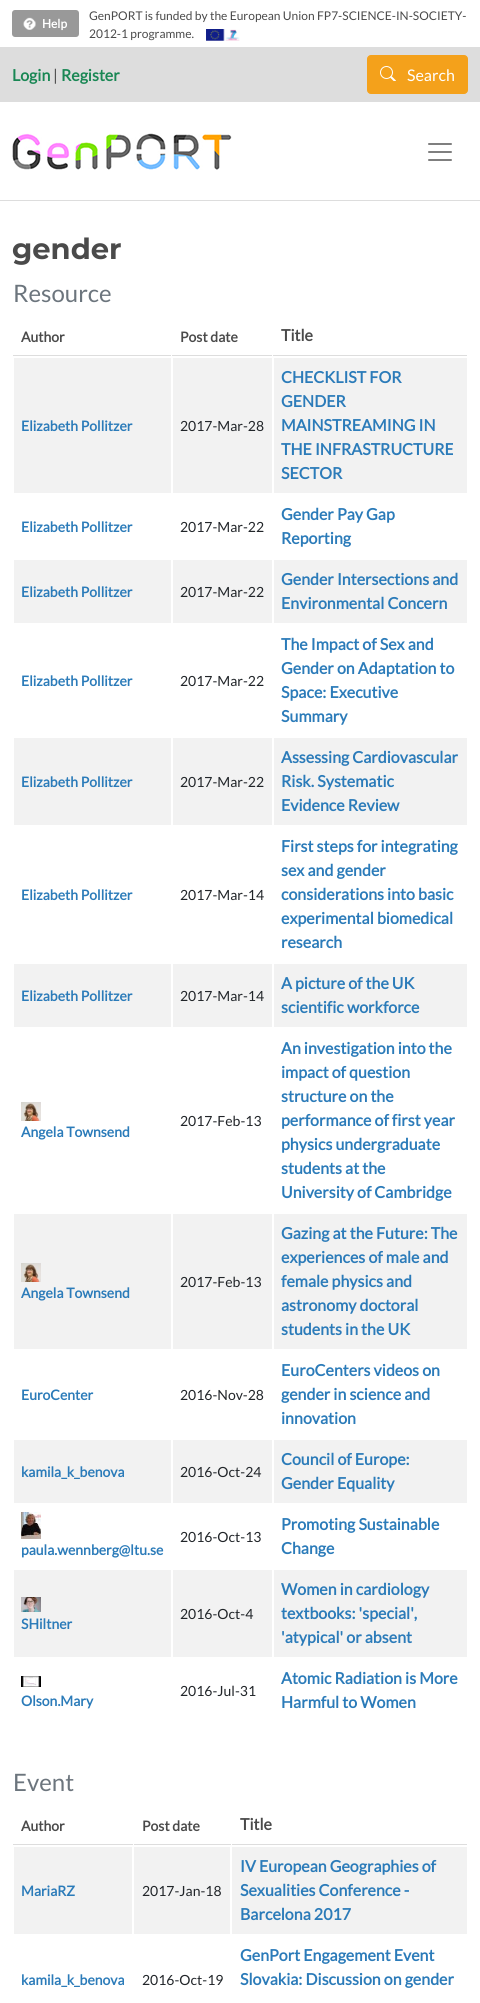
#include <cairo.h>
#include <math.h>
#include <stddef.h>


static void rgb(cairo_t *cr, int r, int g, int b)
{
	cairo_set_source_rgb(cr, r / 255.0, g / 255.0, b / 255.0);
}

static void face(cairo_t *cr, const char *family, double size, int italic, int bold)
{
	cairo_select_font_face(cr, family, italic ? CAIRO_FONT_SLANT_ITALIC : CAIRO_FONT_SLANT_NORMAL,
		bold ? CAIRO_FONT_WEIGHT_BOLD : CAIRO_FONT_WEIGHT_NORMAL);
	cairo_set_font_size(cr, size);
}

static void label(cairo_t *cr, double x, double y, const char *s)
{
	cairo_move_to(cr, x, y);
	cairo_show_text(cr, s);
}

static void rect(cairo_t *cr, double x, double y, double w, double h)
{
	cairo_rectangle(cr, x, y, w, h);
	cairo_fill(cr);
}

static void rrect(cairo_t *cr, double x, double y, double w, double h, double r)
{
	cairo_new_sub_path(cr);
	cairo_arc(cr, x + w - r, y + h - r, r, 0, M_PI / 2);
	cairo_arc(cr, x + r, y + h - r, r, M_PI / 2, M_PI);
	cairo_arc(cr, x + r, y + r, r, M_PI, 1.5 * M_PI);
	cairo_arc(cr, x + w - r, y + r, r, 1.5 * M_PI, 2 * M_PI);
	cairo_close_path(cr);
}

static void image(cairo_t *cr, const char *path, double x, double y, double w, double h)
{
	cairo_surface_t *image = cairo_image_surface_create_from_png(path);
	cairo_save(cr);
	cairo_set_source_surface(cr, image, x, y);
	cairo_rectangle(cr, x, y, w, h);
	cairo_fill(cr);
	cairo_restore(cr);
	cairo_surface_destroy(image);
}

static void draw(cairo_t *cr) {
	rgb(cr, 255, 255, 255);
	cairo_paint(cr);
	rgb(cr, 153, 153, 153);
	rrect(cr, 12, 10, 67, 27, 3);
	cairo_fill(cr);
	image(cr, "image0.png", 23, 17, 13, 13);
	face(cr, "Lato", 12, 0, 1);
	rgb(cr, 255, 255, 255);
	label(cr, 42, 28, "Help");
	face(cr, "Lato", 12, 0, 0);
	rgb(cr, 74, 74, 74);
	label(cr, 89, 20, "GenPORT is funded by the European Union FP7-SCIENCE-IN-SOCIETY-");
	label(cr, 89, 38, "2012-1 programme.");
	image(cr, "image1.png", 206, 29, 34, 12);
	rgb(cr, 221, 221, 221);
	rect(cr, 0, 200, 480, 1);
	rect(cr, 0, 47, 480, 55);
	face(cr, "Lato", 16, 0, 1);
	rgb(cr, 25, 135, 84);
	label(cr, 12, 81, "Login");
	face(cr, "Lato", 16, 0, 0);
	rgb(cr, 74, 74, 74);
	label(cr, 53, 81, "|");
	face(cr, "Lato", 16, 0, 1);
	rgb(cr, 25, 135, 84);
	label(cr, 61, 81, "Register");
	rgb(cr, 244, 161, 27);
	rrect(cr, 367.5, 55.5, 100, 38, 3.5);
	cairo_fill_preserve(cr);
	cairo_set_line_width(cr, 1);
	cairo_stroke(cr);
	image(cr, "image2.png", 380, 66, 16, 15);
	face(cr, "Lato", 16, 0, 0);
	rgb(cr, 255, 255, 255);
	label(cr, 407, 81, "Search");
	image(cr, "image3.png", 12, 133, 220, 37);
	image(cr, "image4.png", 428, 143, 24, 18);
	face(cr, "Montserrat", 29, 0, 1);
	rgb(cr, 74, 74, 74);
	label(cr, 12, 259, "gender");
	face(cr, "Lato", 24, 0, 0);
	rgb(cr, 108, 117, 125);
	label(cr, 13, 302, "Resource");
	rgb(cr, 221, 221, 221);
	rect(cr, 12, 355, 456, 1);
	rgb(cr, 255, 255, 255);
	rect(cr, 12, 355, 1, 1);
	face(cr, "Lato", 14, 0, 1);
	rgb(cr, 74, 74, 74);
	label(cr, 21, 342, "Author");
	rgb(cr, 255, 255, 255);
	rect(cr, 171, 355, 1, 1);
	rgb(cr, 74, 74, 74);
	label(cr, 180, 342, "Post date");
	rgb(cr, 255, 255, 255);
	rect(cr, 467, 355, 1, 1);
	rect(cr, 272, 355, 1, 1);
	face(cr, "Lato", 16, 0, 1);
	rgb(cr, 74, 74, 74);
	label(cr, 281, 341, "Title");
	rgb(cr, 242, 242, 242);
	rect(cr, 14, 358, 157, 135);
	face(cr, "Lato", 14, 0, 1);
	rgb(cr, 43, 123, 185);
	label(cr, 21, 431, "Elizabeth Pollitzer");
	rgb(cr, 242, 242, 242);
	rect(cr, 173, 358, 99, 135);
	face(cr, "Lato", 14, 0, 0);
	rgb(cr, 33, 37, 41);
	label(cr, 180, 431, "2017-Mar-28");
	rgb(cr, 242, 242, 242);
	rect(cr, 274, 358, 193, 135);
	face(cr, "Lato", 16, 0, 1);
	rgb(cr, 43, 123, 185);
	label(cr, 281, 383, "CHECKLIST FOR");
	label(cr, 281, 407, "GENDER");
	label(cr, 281, 431, "MAINSTREAMING IN");
	label(cr, 281, 455, "THE INFRASTRUCTURE");
	label(cr, 281, 479, "SECTOR");
	face(cr, "Lato", 14, 0, 1);
	label(cr, 21, 532, "Elizabeth Pollitzer");
	face(cr, "Lato", 14, 0, 0);
	rgb(cr, 33, 37, 41);
	label(cr, 180, 532, "2017-Mar-22");
	face(cr, "Lato", 16, 0, 1);
	rgb(cr, 43, 123, 185);
	label(cr, 281, 520, "Gender Pay Gap");
	label(cr, 281, 544, "Reporting");
	rgb(cr, 242, 242, 242);
	rect(cr, 14, 560, 157, 63);
	face(cr, "Lato", 14, 0, 1);
	rgb(cr, 43, 123, 185);
	label(cr, 21, 597, "Elizabeth Pollitzer");
	rgb(cr, 242, 242, 242);
	rect(cr, 173, 560, 99, 63);
	face(cr, "Lato", 14, 0, 0);
	rgb(cr, 33, 37, 41);
	label(cr, 180, 597, "2017-Mar-22");
	rgb(cr, 242, 242, 242);
	rect(cr, 274, 560, 193, 63);
	face(cr, "Lato", 16, 0, 1);
	rgb(cr, 43, 123, 185);
	label(cr, 281, 585, "Gender Intersections and");
	label(cr, 281, 609, "Environmental Concern");
	face(cr, "Lato", 14, 0, 1);
	label(cr, 21, 686, "Elizabeth Pollitzer");
	face(cr, "Lato", 14, 0, 0);
	rgb(cr, 33, 37, 41);
	label(cr, 180, 686, "2017-Mar-22");
	face(cr, "Lato", 16, 0, 1);
	rgb(cr, 43, 123, 185);
	label(cr, 281, 650, "The Impact of Sex and");
	label(cr, 281, 674, "Gender on Adaptation to");
	label(cr, 281, 698, "Space: Executive");
	label(cr, 281, 722, "Summary");
	rgb(cr, 242, 242, 242);
	rect(cr, 14, 738, 157, 87);
	face(cr, "Lato", 14, 0, 1);
	rgb(cr, 43, 123, 185);
	label(cr, 21, 787, "Elizabeth Pollitzer");
	rgb(cr, 242, 242, 242);
	rect(cr, 173, 738, 99, 87);
	face(cr, "Lato", 14, 0, 0);
	rgb(cr, 33, 37, 41);
	label(cr, 180, 787, "2017-Mar-22");
	rgb(cr, 242, 242, 242);
	rect(cr, 274, 738, 193, 87);
	face(cr, "Lato", 16, 0, 1);
	rgb(cr, 43, 123, 185);
	label(cr, 281, 763, "Assessing Cardiovascular");
	label(cr, 281, 787, "Risk. Systematic");
	label(cr, 281, 811, "Evidence Review");
	face(cr, "Lato", 14, 0, 1);
	label(cr, 21, 900, "Elizabeth Pollitzer");
	face(cr, "Lato", 14, 0, 0);
	rgb(cr, 33, 37, 41);
	label(cr, 180, 900, "2017-Mar-14");
	face(cr, "Lato", 16, 0, 1);
	rgb(cr, 43, 123, 185);
	label(cr, 281, 852, "First steps for integrating");
	label(cr, 281, 876, "sex and gender");
	label(cr, 281, 900, "considerations into basic");
	label(cr, 281, 924, "experimental biomedical");
	label(cr, 281, 948, "research");
	rgb(cr, 242, 242, 242);
	rect(cr, 14, 964, 157, 63);
	face(cr, "Lato", 14, 0, 1);
	rgb(cr, 43, 123, 185);
	label(cr, 21, 1001, "Elizabeth Pollitzer");
	rgb(cr, 242, 242, 242);
	rect(cr, 173, 964, 99, 63);
	face(cr, "Lato", 14, 0, 0);
	rgb(cr, 33, 37, 41);
	label(cr, 180, 1001, "2017-Mar-14");
	rgb(cr, 242, 242, 242);
	rect(cr, 274, 964, 193, 63);
	face(cr, "Lato", 16, 0, 1);
	rgb(cr, 43, 123, 185);
	label(cr, 281, 989, "A picture of the UK");
	label(cr, 281, 1013, "scientific workforce");
	face(cr, "Lato", 14, 0, 0);
	rgb(cr, 33, 37, 41);
	label(cr, 180, 1126, "2017-Feb-13");
	face(cr, "Lato", 16, 0, 1);
	rgb(cr, 43, 123, 185);
	label(cr, 281, 1054, "An investigation into the");
	label(cr, 281, 1078, "impact of question");
	label(cr, 281, 1102, "structure on the");
	label(cr, 281, 1126, "performance of first year");
	label(cr, 281, 1150, "physics undergraduate");
	label(cr, 281, 1174, "students at the");
	label(cr, 281, 1198, "University of Cambridge");
	image(cr, "image5.png", 21, 1102, 20, 19);
	face(cr, "Lato", 14, 0, 1);
	label(cr, 21, 1137, "Angela Townsend");
	rgb(cr, 242, 242, 242);
	rect(cr, 173, 1214, 99, 135);
	face(cr, "Lato", 14, 0, 0);
	rgb(cr, 33, 37, 41);
	label(cr, 180, 1287, "2017-Feb-13");
	rgb(cr, 242, 242, 242);
	rect(cr, 274, 1214, 193, 135);
	face(cr, "Lato", 16, 0, 1);
	rgb(cr, 43, 123, 185);
	label(cr, 281, 1239, "Gazing at the Future: The");
	label(cr, 281, 1263, "experiences of male and");
	label(cr, 281, 1287, "female physics and");
	label(cr, 281, 1311, "astronomy doctoral");
	label(cr, 281, 1335, "students in the UK");
	rgb(cr, 242, 242, 242);
	rect(cr, 14, 1214, 157, 135);
	image(cr, "image5.png", 21, 1263, 20, 19);
	face(cr, "Lato", 14, 0, 1);
	rgb(cr, 43, 123, 185);
	label(cr, 21, 1298, "Angela Townsend");
	label(cr, 21, 1400, "EuroCenter");
	face(cr, "Lato", 14, 0, 0);
	rgb(cr, 33, 37, 41);
	label(cr, 180, 1400, "2016-Nov-28");
	face(cr, "Lato", 16, 0, 1);
	rgb(cr, 43, 123, 185);
	label(cr, 281, 1376, "EuroCenters videos on");
	label(cr, 281, 1400, "gender in science and");
	label(cr, 281, 1424, "innovation");
	rgb(cr, 242, 242, 242);
	rect(cr, 14, 1440, 157, 63);
	face(cr, "Lato", 14, 0, 1);
	rgb(cr, 43, 123, 185);
	label(cr, 21, 1477, "kamila_k_benova");
	rgb(cr, 242, 242, 242);
	rect(cr, 173, 1440, 99, 63);
	face(cr, "Lato", 14, 0, 0);
	rgb(cr, 33, 37, 41);
	label(cr, 180, 1477, "2016-Oct-24");
	rgb(cr, 242, 242, 242);
	rect(cr, 274, 1440, 193, 63);
	face(cr, "Lato", 16, 0, 1);
	rgb(cr, 43, 123, 185);
	label(cr, 281, 1465, "Council of Europe:");
	label(cr, 281, 1489, "Gender Equality");
	face(cr, "Lato", 14, 0, 0);
	rgb(cr, 33, 37, 41);
	label(cr, 180, 1542, "2016-Oct-13");
	face(cr, "Lato", 16, 0, 1);
	rgb(cr, 43, 123, 185);
	label(cr, 281, 1530, "Promoting Sustainable");
	label(cr, 281, 1554, "Change");
	image(cr, "image6.png", 21, 1512, 20, 27);
	face(cr, "Lato", 14, 0, 1);
	label(cr, 21, 1555, "paula.wennberg@ltu.se");
	rgb(cr, 242, 242, 242);
	rect(cr, 173, 1570, 99, 87);
	face(cr, "Lato", 14, 0, 0);
	rgb(cr, 33, 37, 41);
	label(cr, 180, 1619, "2016-Oct-4");
	rgb(cr, 242, 242, 242);
	rect(cr, 274, 1570, 193, 87);
	face(cr, "Lato", 16, 0, 1);
	rgb(cr, 43, 123, 185);
	label(cr, 281, 1595, "Women in cardiology");
	label(cr, 281, 1619, "textbooks: 'special',");
	label(cr, 281, 1643, "'atypical' or absent");
	rgb(cr, 242, 242, 242);
	rect(cr, 14, 1570, 157, 87);
	image(cr, "image7.png", 21, 1597, 20, 15);
	face(cr, "Lato", 14, 0, 1);
	rgb(cr, 43, 123, 185);
	label(cr, 21, 1629, "SHiltner");
	face(cr, "Lato", 14, 0, 0);
	rgb(cr, 33, 37, 41);
	label(cr, 180, 1696, "2016-Jul-31");
	face(cr, "Lato", 16, 0, 1);
	rgb(cr, 43, 123, 185);
	label(cr, 281, 1684, "Atomic Radiation is More");
	label(cr, 281, 1708, "Harmful to Women");
	image(cr, "image8.png", 21, 1676, 20, 11);
	face(cr, "Lato", 14, 0, 1);
	label(cr, 21, 1706, "Olson.Mary");
	face(cr, "Lato", 24, 0, 0);
	rgb(cr, 108, 117, 125);
	label(cr, 13, 1791, "Event");
	rgb(cr, 221, 221, 221);
	rect(cr, 12, 1844, 456, 1);
	rgb(cr, 255, 255, 255);
	rect(cr, 12, 1844, 1, 1);
	face(cr, "Lato", 14, 0, 1);
	rgb(cr, 74, 74, 74);
	label(cr, 21, 1831, "Author");
	rgb(cr, 255, 255, 255);
	rect(cr, 133, 1844, 1, 1);
	rgb(cr, 74, 74, 74);
	label(cr, 142, 1831, "Post date");
	rgb(cr, 255, 255, 255);
	rect(cr, 467, 1844, 1, 1);
	rect(cr, 231, 1844, 1, 1);
	face(cr, "Lato", 16, 0, 1);
	rgb(cr, 74, 74, 74);
	label(cr, 240, 1830, "Title");
	rgb(cr, 242, 242, 242);
	rect(cr, 14, 1847, 118, 87);
	face(cr, "Lato", 14, 0, 1);
	rgb(cr, 43, 123, 185);
	label(cr, 21, 1896, "MariaRZ");
	rgb(cr, 242, 242, 242);
	rect(cr, 134, 1847, 96, 87);
	face(cr, "Lato", 14, 0, 0);
	rgb(cr, 33, 37, 41);
	label(cr, 142, 1896, "2017-Jan-18");
	rgb(cr, 242, 242, 242);
	rect(cr, 232, 1847, 235, 87);
	face(cr, "Lato", 16, 0, 1);
	rgb(cr, 43, 123, 185);
	label(cr, 240, 1872, "IV European Geographies of");
	label(cr, 240, 1896, "Sexualities Conference -");
	label(cr, 240, 1920, "Barcelona 2017");
	face(cr, "Lato", 14, 0, 1);
	label(cr, 21, 1985, "kamila_k_benova");
	face(cr, "Lato", 14, 0, 0);
	rgb(cr, 33, 37, 41);
	label(cr, 142, 1985, "2016-Oct-19");
	face(cr, "Lato", 16, 0, 1);
	rgb(cr, 43, 123, 185);
	label(cr, 240, 1961, "GenPort Engagement Event");
	label(cr, 240, 1985, "Slovakia: Discussion on gender");
}

int main(void) {
	cairo_surface_t *surface = cairo_image_surface_create(CAIRO_FORMAT_RGB24, 480, 2003);
	cairo_t *cr = cairo_create(surface);
	cairo_font_options_t *options = cairo_font_options_create();
	cairo_font_options_set_hint_metrics(options, CAIRO_HINT_METRICS_OFF);
	cairo_font_options_set_hint_style(options, CAIRO_HINT_STYLE_NONE);
	cairo_set_font_options(cr, options);
	cairo_set_miter_limit(cr, 4);
	draw(cr);
	cairo_surface_write_to_png(surface, "render.png");
	cairo_font_options_destroy(options);
	cairo_destroy(cr);
	cairo_surface_destroy(surface);
	return 0;
}
